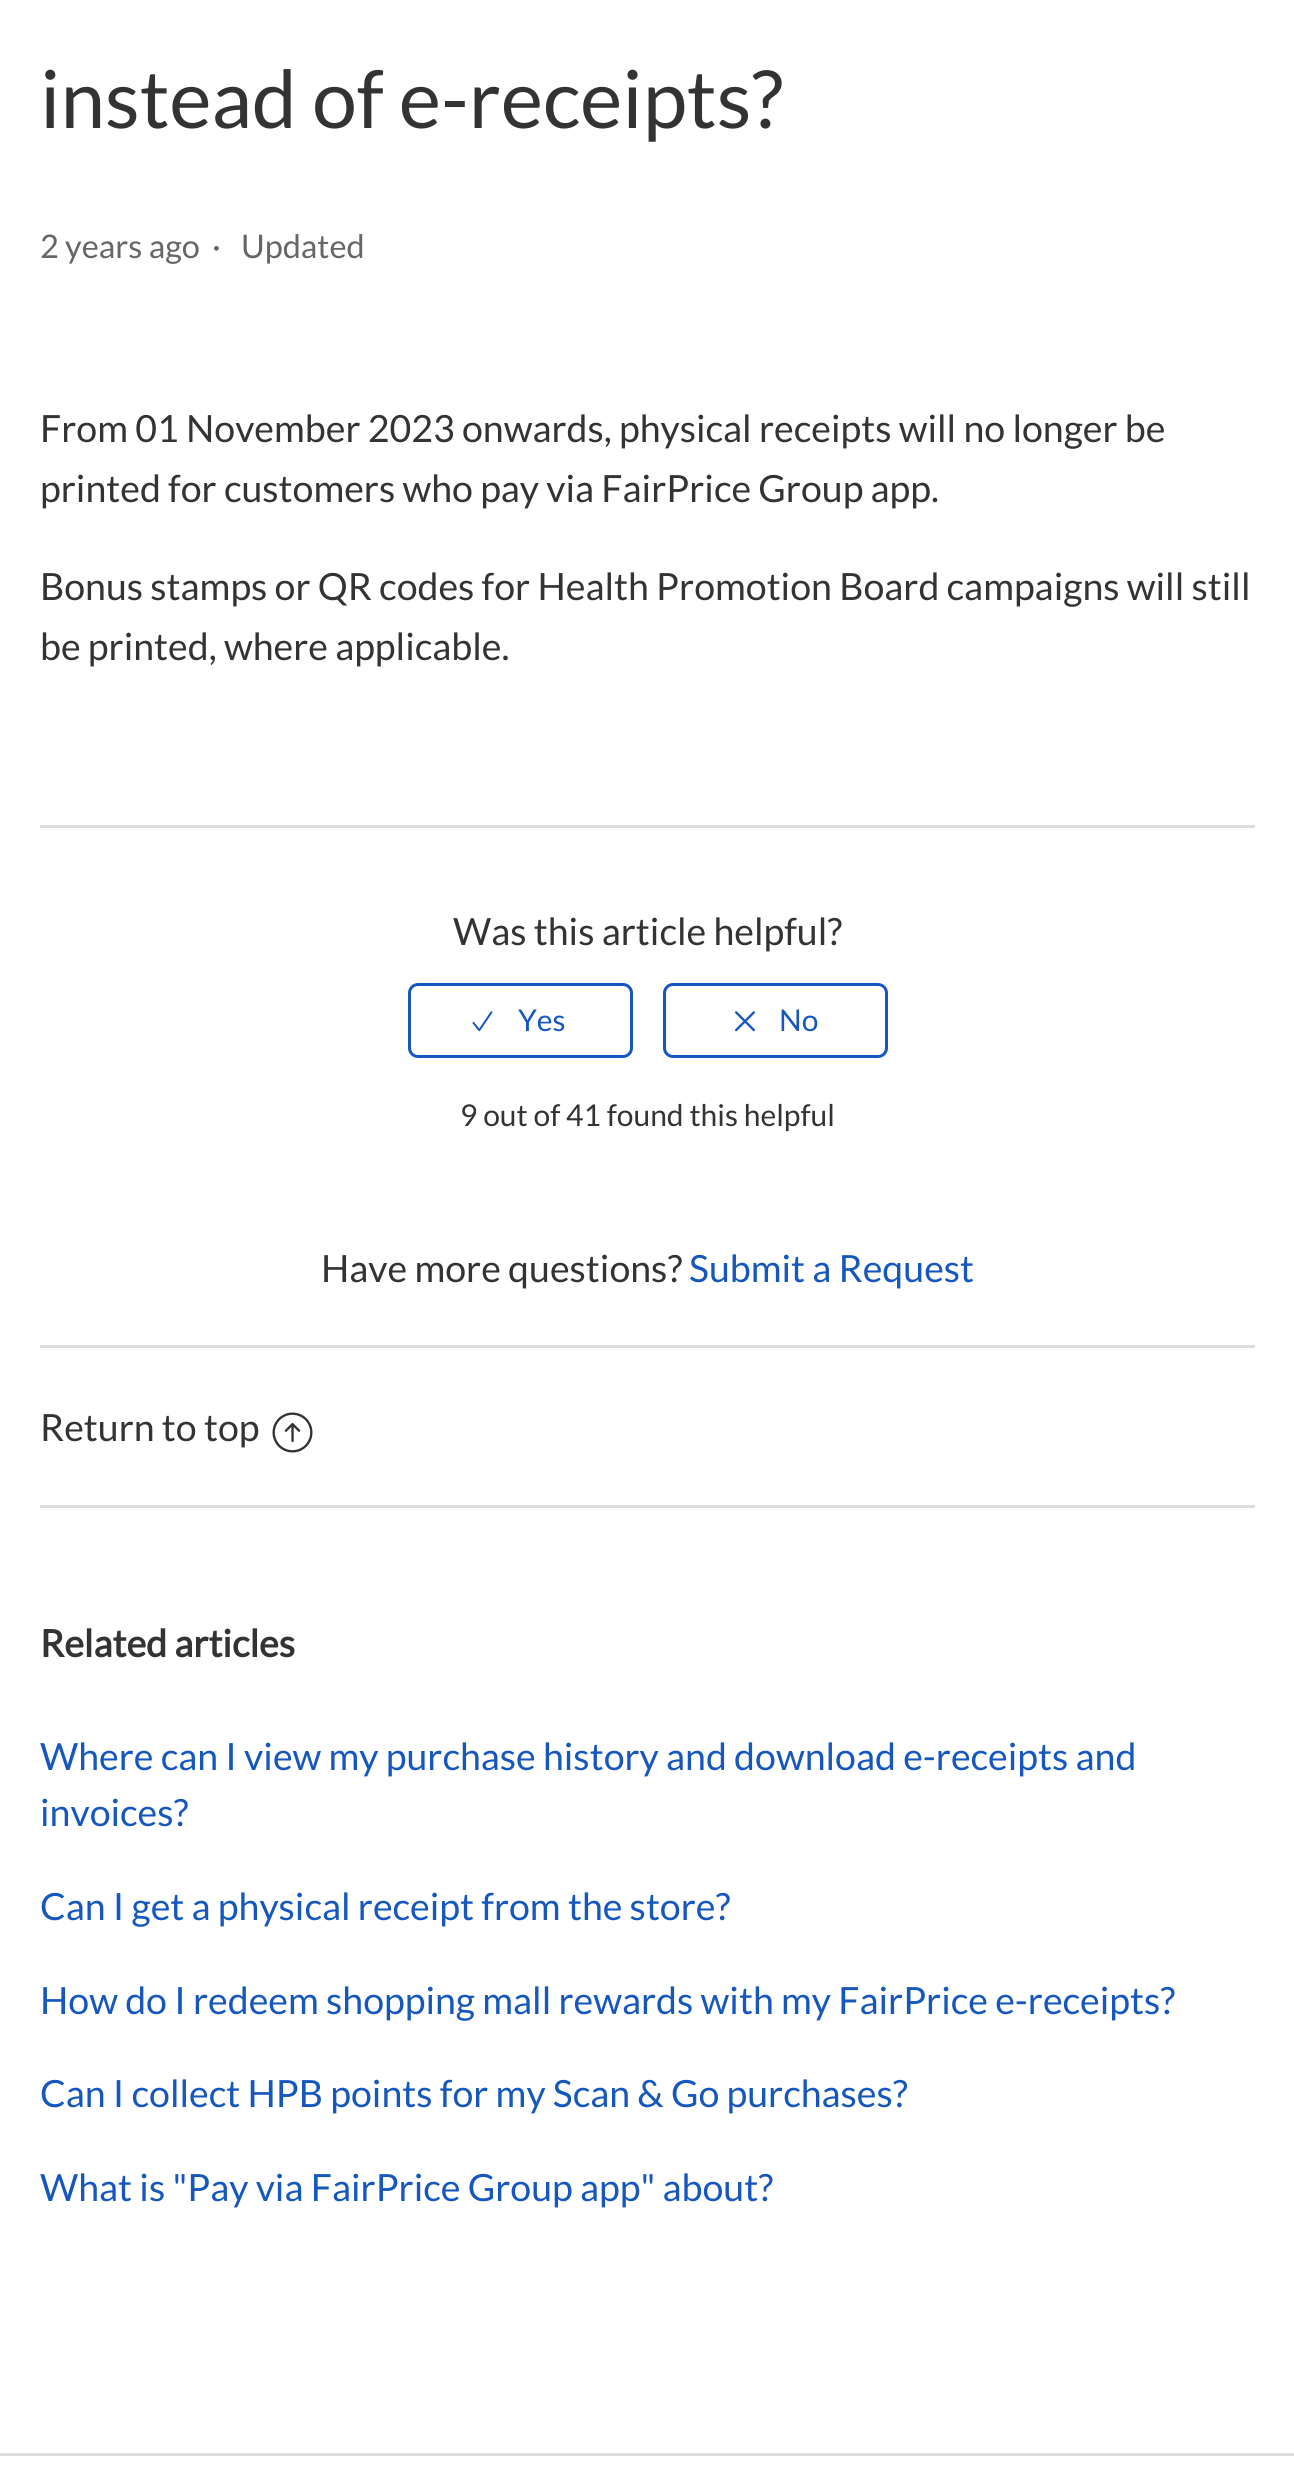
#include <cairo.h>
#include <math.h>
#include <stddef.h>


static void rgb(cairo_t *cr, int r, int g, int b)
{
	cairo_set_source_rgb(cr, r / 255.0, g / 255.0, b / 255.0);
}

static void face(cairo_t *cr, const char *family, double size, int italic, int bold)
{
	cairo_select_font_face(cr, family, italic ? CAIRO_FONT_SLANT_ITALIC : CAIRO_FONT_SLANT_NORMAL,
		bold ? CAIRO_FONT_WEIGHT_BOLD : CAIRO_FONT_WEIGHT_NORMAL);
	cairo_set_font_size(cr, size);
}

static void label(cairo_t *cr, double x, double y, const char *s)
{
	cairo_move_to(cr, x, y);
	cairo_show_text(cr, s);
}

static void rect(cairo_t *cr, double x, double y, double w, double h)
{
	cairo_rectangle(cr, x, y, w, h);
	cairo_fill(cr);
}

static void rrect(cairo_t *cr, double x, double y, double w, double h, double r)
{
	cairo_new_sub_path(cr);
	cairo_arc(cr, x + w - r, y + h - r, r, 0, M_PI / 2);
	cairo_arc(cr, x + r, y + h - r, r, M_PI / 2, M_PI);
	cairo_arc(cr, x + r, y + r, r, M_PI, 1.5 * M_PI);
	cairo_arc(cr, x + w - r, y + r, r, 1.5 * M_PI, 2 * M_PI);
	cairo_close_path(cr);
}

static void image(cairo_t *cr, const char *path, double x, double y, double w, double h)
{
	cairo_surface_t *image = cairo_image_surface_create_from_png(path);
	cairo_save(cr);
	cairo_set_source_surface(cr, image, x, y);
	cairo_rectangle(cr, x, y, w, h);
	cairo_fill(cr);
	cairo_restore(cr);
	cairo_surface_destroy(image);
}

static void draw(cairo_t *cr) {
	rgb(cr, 255, 255, 255);
	cairo_paint(cr);
	face(cr, "Lato", 80, 0, 0);
	rgb(cr, 51, 51, 51);
	label(cr, 40, 128, "instead of e-receipts?");
	face(cr, "Lato", 32.5, 0, 0);
	rgb(cr, 102, 102, 102);
	label(cr, 40, 258, "2 years ago");
	label(cr, 212, 258, "·");
	label(cr, 241, 258, "Updated");
	face(cr, "Lato", 37.5, 0, 0);
	rgb(cr, 51, 51, 51);
	label(cr, 40, 442, "From 01 November 2023 onwards, physical receipts will no longer be");
	label(cr, 40, 502, "printed for customers who pay via FairPrice Group app.");
	label(cr, 40, 600, "Bonus stamps or QR codes for Health Promotion Board campaigns will still");
	label(cr, 40, 660, "be printed, where applicable.");
	rgb(cr, 221, 221, 221);
	rect(cr, 40, 825, 1215, 3);
	rgb(cr, 51, 51, 51);
	label(cr, 453, 945, "Was this article helpful?");
	rrect(cr, 409.5, 984.5, 222, 72, 8.5);
	rgb(cr, 21, 87, 191);
	cairo_set_line_width(cr, 3);
	cairo_stroke(cr);
	image(cr, "image0.png", 472, 1011, 21, 21);
	face(cr, "Lato", 30, 0, 0);
	label(cr, 518, 1031, "Yes");
	rrect(cr, 664.5, 984.5, 222, 72, 8.5);
	cairo_stroke(cr);
	image(cr, "image1.png", 735, 1011, 20, 21);
	label(cr, 779, 1031, "No");
	rgb(cr, 51, 51, 51);
	label(cr, 460, 1126, "9 out of 41 found this helpful");
	face(cr, "Lato", 37.5, 0, 0);
	label(cr, 321, 1282, "Have more questions?");
	rgb(cr, 21, 87, 191);
	label(cr, 689, 1282, "Submit a Request");
	rgb(cr, 221, 221, 221);
	rect(cr, 40, 1345, 1215, 3);
	rgb(cr, 51, 51, 51);
	label(cr, 40, 1441, "Return to top");
	image(cr, "image2.png", 272, 1412, 41, 41);
	rgb(cr, 221, 221, 221);
	rect(cr, 40, 1505, 1215, 3);
	face(cr, "Lato", 37.5, 0, 1);
	rgb(cr, 51, 51, 51);
	label(cr, 40, 1657, "Related articles");
	face(cr, "Lato", 37.5, 0, 0);
	rgb(cr, 21, 87, 191);
	label(cr, 40, 1770, "Where can I view my purchase history and download e-receipts and");
	label(cr, 40, 1826, "invoices?");
	label(cr, 40, 1920, "Can I get a physical receipt from the store?");
	label(cr, 40, 2014, "How do I redeem shopping mall rewards with my FairPrice e-receipts?");
	label(cr, 40, 2107, "Can I collect HPB points for my Scan & Go purchases?");
	label(cr, 40, 2201, "What is \"Pay via FairPrice Group app\" about?");
	rgb(cr, 221, 221, 221);
	rect(cr, 0, 2453, 1294, 3);
}

int main(void) {
	cairo_surface_t *surface = cairo_image_surface_create(CAIRO_FORMAT_RGB24, 1294, 2479);
	cairo_t *cr = cairo_create(surface);
	cairo_font_options_t *options = cairo_font_options_create();
	cairo_font_options_set_hint_metrics(options, CAIRO_HINT_METRICS_OFF);
	cairo_font_options_set_hint_style(options, CAIRO_HINT_STYLE_NONE);
	cairo_set_font_options(cr, options);
	cairo_set_miter_limit(cr, 4);
	draw(cr);
	cairo_surface_write_to_png(surface, "render.png");
	cairo_font_options_destroy(options);
	cairo_destroy(cr);
	cairo_surface_destroy(surface);
	return 0;
}
